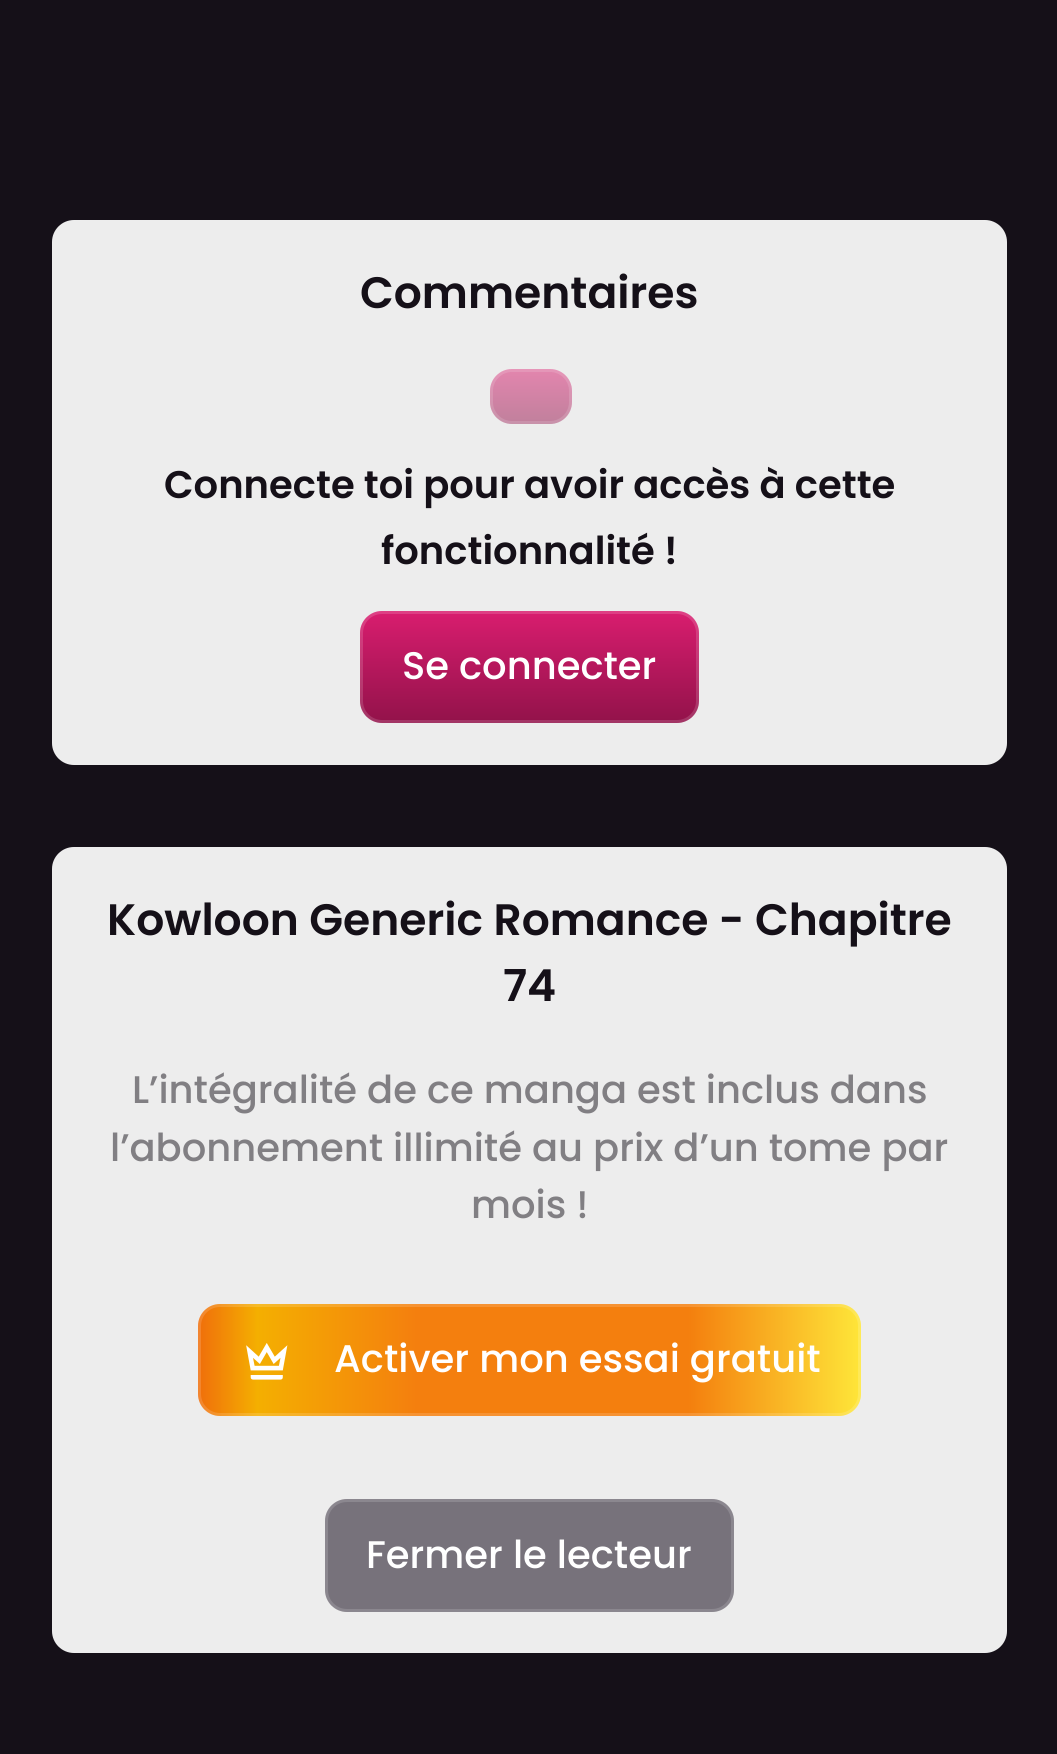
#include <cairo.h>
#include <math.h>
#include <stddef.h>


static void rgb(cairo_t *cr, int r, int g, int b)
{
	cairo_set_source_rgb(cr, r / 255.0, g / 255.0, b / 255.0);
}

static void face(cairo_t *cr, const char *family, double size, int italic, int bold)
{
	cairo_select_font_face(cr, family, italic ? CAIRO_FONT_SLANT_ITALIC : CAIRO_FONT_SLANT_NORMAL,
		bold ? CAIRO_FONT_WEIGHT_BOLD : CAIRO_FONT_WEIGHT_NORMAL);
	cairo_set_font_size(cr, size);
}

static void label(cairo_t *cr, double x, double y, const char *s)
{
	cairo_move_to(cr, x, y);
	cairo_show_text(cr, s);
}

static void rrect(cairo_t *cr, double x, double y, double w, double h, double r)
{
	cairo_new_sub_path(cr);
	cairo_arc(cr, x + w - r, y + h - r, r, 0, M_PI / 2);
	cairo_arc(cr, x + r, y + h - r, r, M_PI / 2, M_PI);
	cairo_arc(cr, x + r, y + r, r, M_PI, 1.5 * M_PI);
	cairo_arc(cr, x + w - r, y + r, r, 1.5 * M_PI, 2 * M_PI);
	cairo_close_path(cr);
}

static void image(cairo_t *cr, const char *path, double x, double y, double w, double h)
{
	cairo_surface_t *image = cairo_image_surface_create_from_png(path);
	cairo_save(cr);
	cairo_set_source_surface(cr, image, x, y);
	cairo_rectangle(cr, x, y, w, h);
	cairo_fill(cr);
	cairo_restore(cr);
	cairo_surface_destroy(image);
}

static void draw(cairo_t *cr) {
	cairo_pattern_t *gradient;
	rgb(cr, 21, 16, 24);
	cairo_paint(cr);
	rgb(cr, 237, 237, 237);
	rrect(cr, 52, 220, 955, 545, 22);
	cairo_fill(cr);
	face(cr, "Poppins SemiBold", 44, 0, 0);
	rgb(cr, 21, 16, 24);
	label(cr, 360, 308, "Commentaires");
	gradient = cairo_pattern_create_linear(531, 369, 531, 424);
	cairo_pattern_add_color_stop_rgba(gradient, 0, 0.89, 0.522, 0.682, 1);
	cairo_pattern_add_color_stop_rgba(gradient, 1, 0.753, 0.502, 0.612, 1);
	cairo_set_source(cr, gradient);
	cairo_pattern_destroy(gradient);
	rrect(cr, 490, 369, 82, 55, 22);
	cairo_fill(cr);
	rrect(cr, 491.5, 370.5, 79, 52, 20.5);
	cairo_set_source_rgba(cr, 0.965, 0.965, 0.965, 0.15);
	cairo_set_line_width(cr, 3);
	cairo_stroke(cr);
	face(cr, "Poppins SemiBold", 38.5, 0, 0);
	rgb(cr, 21, 16, 24);
	label(cr, 164, 498, "Connecte toi pour avoir accès à cette");
	label(cr, 381, 564, "fonctionnalité !");
	gradient = cairo_pattern_create_linear(529, 611, 529, 723);
	cairo_pattern_add_color_stop_rgba(gradient, 0, 0.851, 0.114, 0.435, 1);
	cairo_pattern_add_color_stop_rgba(gradient, 1, 0.573, 0.071, 0.29, 1);
	cairo_set_source(cr, gradient);
	cairo_pattern_destroy(gradient);
	rrect(cr, 360, 611, 339, 112, 22);
	cairo_fill(cr);
	rrect(cr, 361.5, 612.5, 336, 109, 20.5);
	cairo_set_source_rgba(cr, 1, 1, 1, 0.15);
	cairo_stroke(cr);
	face(cr, "Poppins Medium", 38.5, 0, 0);
	rgb(cr, 255, 255, 255);
	label(cr, 402, 679, "Se connecter");
	rgb(cr, 237, 237, 237);
	rrect(cr, 52, 847, 955, 806, 22);
	cairo_fill(cr);
	face(cr, "Poppins SemiBold", 44, 0, 0);
	rgb(cr, 21, 16, 24);
	label(cr, 107, 935, "Kowloon Generic Romance - Chapitre");
	label(cr, 503, 1001, "74");
	face(cr, "Poppins Medium", 38.5, 0, 0);
	rgb(cr, 129, 127, 131);
	label(cr, 132, 1103, "L’intégralité de ce manga est inclus dans");
	label(cr, 110, 1161, "l’abonnement illimité au prix d’un tome par");
	label(cr, 471, 1218, "mois !");
	gradient = cairo_pattern_create_linear(198, 1360, 861, 1360);
	cairo_pattern_add_color_stop_rgba(gradient, 0, 0.941, 0.431, 0.043, 1);
	cairo_pattern_add_color_stop_rgba(gradient, 0.09, 0.957, 0.686, 0.004, 1);
	cairo_pattern_add_color_stop_rgba(gradient, 0.33, 0.957, 0.498, 0.055, 1);
	cairo_pattern_add_color_stop_rgba(gradient, 0.74, 0.957, 0.498, 0.055, 1);
	cairo_pattern_add_color_stop_rgba(gradient, 1, 0.996, 0.902, 0.224, 1);
	cairo_set_source(cr, gradient);
	cairo_pattern_destroy(gradient);
	rrect(cr, 198, 1304, 663, 112, 22);
	cairo_fill(cr);
	rrect(cr, 199.5, 1305.5, 660, 109, 20.5);
	cairo_set_source_rgba(cr, 1, 1, 1, 0.15);
	cairo_stroke(cr);
	image(cr, "image0.png", 246, 1343, 42, 37);
	rgb(cr, 255, 255, 255);
	label(cr, 334, 1372, "Activer mon essai gratuit");
	rgb(cr, 119, 114, 123);
	rrect(cr, 325, 1499, 409, 113, 22);
	cairo_fill(cr);
	rrect(cr, 326.5, 1500.5, 406, 110, 20.5);
	cairo_set_source_rgba(cr, 1, 1, 1, 0.15);
	cairo_stroke(cr);
	rgb(cr, 255, 255, 255);
	label(cr, 366, 1568, "Fermer le lecteur");
}

int main(void) {
	cairo_surface_t *surface = cairo_image_surface_create(CAIRO_FORMAT_RGB24, 1057, 1754);
	cairo_t *cr = cairo_create(surface);
	cairo_font_options_t *options = cairo_font_options_create();
	cairo_font_options_set_hint_metrics(options, CAIRO_HINT_METRICS_OFF);
	cairo_font_options_set_hint_style(options, CAIRO_HINT_STYLE_NONE);
	cairo_set_font_options(cr, options);
	cairo_set_miter_limit(cr, 4);
	draw(cr);
	cairo_surface_write_to_png(surface, "render.png");
	cairo_font_options_destroy(options);
	cairo_destroy(cr);
	cairo_surface_destroy(surface);
	return 0;
}
